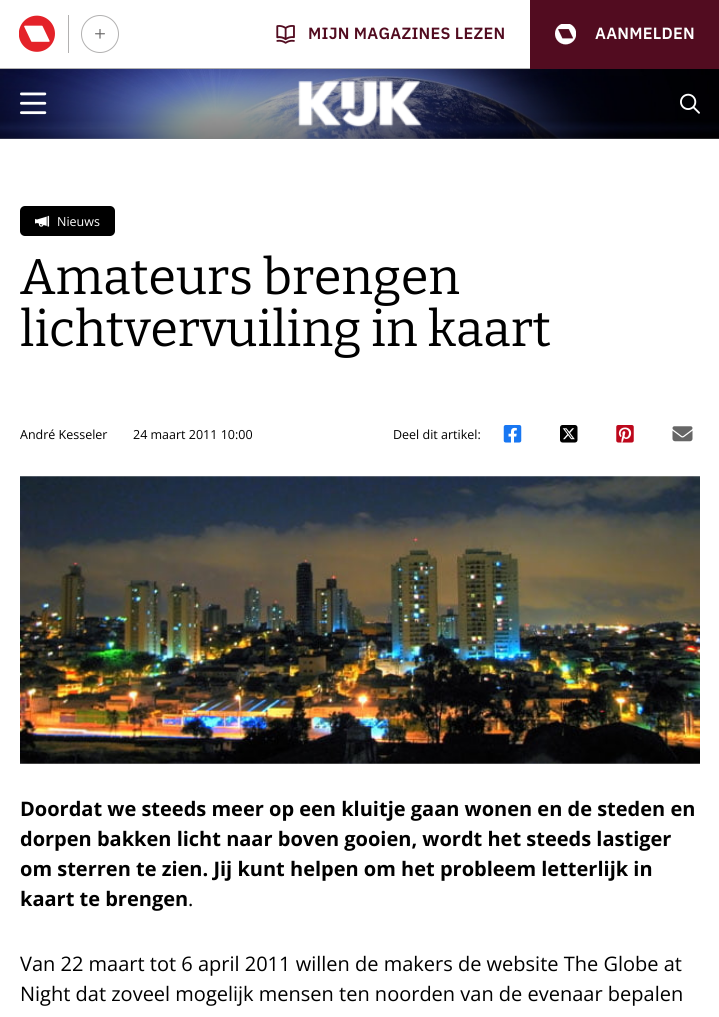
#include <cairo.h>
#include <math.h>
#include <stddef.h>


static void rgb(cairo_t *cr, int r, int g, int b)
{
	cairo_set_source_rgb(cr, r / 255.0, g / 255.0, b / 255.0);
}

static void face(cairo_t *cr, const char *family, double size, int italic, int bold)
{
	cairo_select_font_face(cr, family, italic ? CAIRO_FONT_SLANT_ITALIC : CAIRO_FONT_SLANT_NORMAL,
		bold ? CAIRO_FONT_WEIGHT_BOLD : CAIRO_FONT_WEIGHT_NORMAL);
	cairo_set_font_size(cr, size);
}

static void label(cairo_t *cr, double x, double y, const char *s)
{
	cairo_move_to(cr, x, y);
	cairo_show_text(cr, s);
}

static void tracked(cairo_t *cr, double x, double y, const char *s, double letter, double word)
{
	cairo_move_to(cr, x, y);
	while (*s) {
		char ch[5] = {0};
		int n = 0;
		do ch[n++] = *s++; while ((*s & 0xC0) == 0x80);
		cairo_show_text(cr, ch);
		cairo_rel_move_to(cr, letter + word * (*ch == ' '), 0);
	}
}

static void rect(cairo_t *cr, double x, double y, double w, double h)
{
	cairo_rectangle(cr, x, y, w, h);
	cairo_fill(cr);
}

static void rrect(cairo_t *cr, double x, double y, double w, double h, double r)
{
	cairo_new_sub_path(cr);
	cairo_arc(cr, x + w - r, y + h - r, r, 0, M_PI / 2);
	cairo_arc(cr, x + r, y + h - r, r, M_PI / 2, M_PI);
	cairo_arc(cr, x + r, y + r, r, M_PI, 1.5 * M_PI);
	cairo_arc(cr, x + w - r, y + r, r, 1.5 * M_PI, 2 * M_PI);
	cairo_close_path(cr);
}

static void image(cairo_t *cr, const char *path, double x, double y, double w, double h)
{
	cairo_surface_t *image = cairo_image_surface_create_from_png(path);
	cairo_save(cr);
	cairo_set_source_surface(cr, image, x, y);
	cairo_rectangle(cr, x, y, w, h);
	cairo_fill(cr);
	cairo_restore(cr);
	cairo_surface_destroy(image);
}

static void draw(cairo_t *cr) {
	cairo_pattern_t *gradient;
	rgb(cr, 255, 255, 255);
	cairo_paint(cr);
	rgb(cr, 178, 178, 178);
	rect(cr, 0, 68, 530, 1);
	rgb(cr, 178, 177, 177);
	rect(cr, 68, 15, 1, 38);
	image(cr, "image0.png", 19, 15, 36, 37);
	cairo_arc(cr, 100, 34, 18.5, 0, 2 * M_PI);
	cairo_set_line_width(cr, 1);
	cairo_stroke(cr);
	image(cr, "image1.png", 95, 29, 10, 10);
	image(cr, "image2.png", 276, 25, 19, 19);
	face(cr, "IBM Plex Sans SemiBold", 16.25, 0, 0);
	rgb(cr, 82, 12, 32);
	tracked(cr, 308, 39, "MIJN MAGAZINES LEZEN", 0.25, 0);
	rect(cr, 530, 0, 189, 69);
	image(cr, "image3.png", 555, 24, 21, 21);
	rgb(cr, 255, 255, 255);
	tracked(cr, 595, 39, "AANMELDEN", 0.25, 0);
	image(cr, "image4.png", 0, 69, 719, 70);
	gradient = cairo_pattern_create_linear(360, 69, 360, 139);
	cairo_pattern_add_color_stop_rgba(gradient, 0, 0, 0, 0, 0.22);
	cairo_pattern_add_color_stop_rgba(gradient, 1, 0, 0, 0, 0.5);
	cairo_set_source(cr, gradient);
	cairo_pattern_destroy(gradient);
	rect(cr, 0, 69, 719, 70);
	image(cr, "image5.png", 20, 92, 27, 23);
	image(cr, "image6.png", 298, 81, 124, 46);
	image(cr, "image7.png", 680, 93, 20, 21);
	rgb(cr, 0, 0, 0);
	rrect(cr, 20, 206, 95, 30, 5);
	cairo_fill(cr);
	image(cr, "image8.png", 35, 215, 15, 12);
	face(cr, "Open Sans", 12.5, 0, 0);
	rgb(cr, 255, 255, 255);
	label(cr, 57, 226, "Nieuws");
	face(cr, "Bitter", 50, 0, 0);
	rgb(cr, 0, 0, 0);
	label(cr, 20, 294, "Amateurs brengen");
	label(cr, 20, 346, "lichtvervuiling in kaart");
	face(cr, "Open Sans", 12.5, 0, 0);
	label(cr, 20, 439, "André Kesseler");
	label(cr, 133, 439, "24 maart 2011 10:00");
	label(cr, 393, 439, "Deel dit artikel:");
	image(cr, "image9.png", 503, 425, 19, 18);
	image(cr, "image10.png", 560, 425, 18, 18);
	image(cr, "image11.png", 616, 425, 18, 18);
	image(cr, "image12.png", 672, 426, 21, 16);
	image(cr, "image13.png", 20, 476, 680, 288);
	face(cr, "Open Sans", 20, 0, 1);
	label(cr, 20, 816, "Doordat we steeds meer op een kluitje gaan wonen en de steden en");
	label(cr, 20, 846, "dorpen bakken licht naar boven gooien, wordt het steeds lastiger");
	label(cr, 20, 876, "om sterren te zien. Jij kunt helpen om het probleem letterlijk in");
	label(cr, 20, 906, "kaart te brengen");
	face(cr, "Open Sans", 20, 0, 0);
	label(cr, 188, 906, ".");
	label(cr, 20, 971, "Van 22 maart tot 6 april 2011 willen de makers de website The Globe at");
	label(cr, 20, 1001, "Night dat zoveel mogelijk mensen ten noorden van de evenaar bepalen");
}

int main(void) {
	cairo_surface_t *surface = cairo_image_surface_create(CAIRO_FORMAT_RGB24, 719, 1017);
	cairo_t *cr = cairo_create(surface);
	cairo_font_options_t *options = cairo_font_options_create();
	cairo_font_options_set_hint_metrics(options, CAIRO_HINT_METRICS_OFF);
	cairo_font_options_set_hint_style(options, CAIRO_HINT_STYLE_NONE);
	cairo_set_font_options(cr, options);
	cairo_set_miter_limit(cr, 4);
	draw(cr);
	cairo_surface_write_to_png(surface, "render.png");
	cairo_font_options_destroy(options);
	cairo_destroy(cr);
	cairo_surface_destroy(surface);
	return 0;
}
